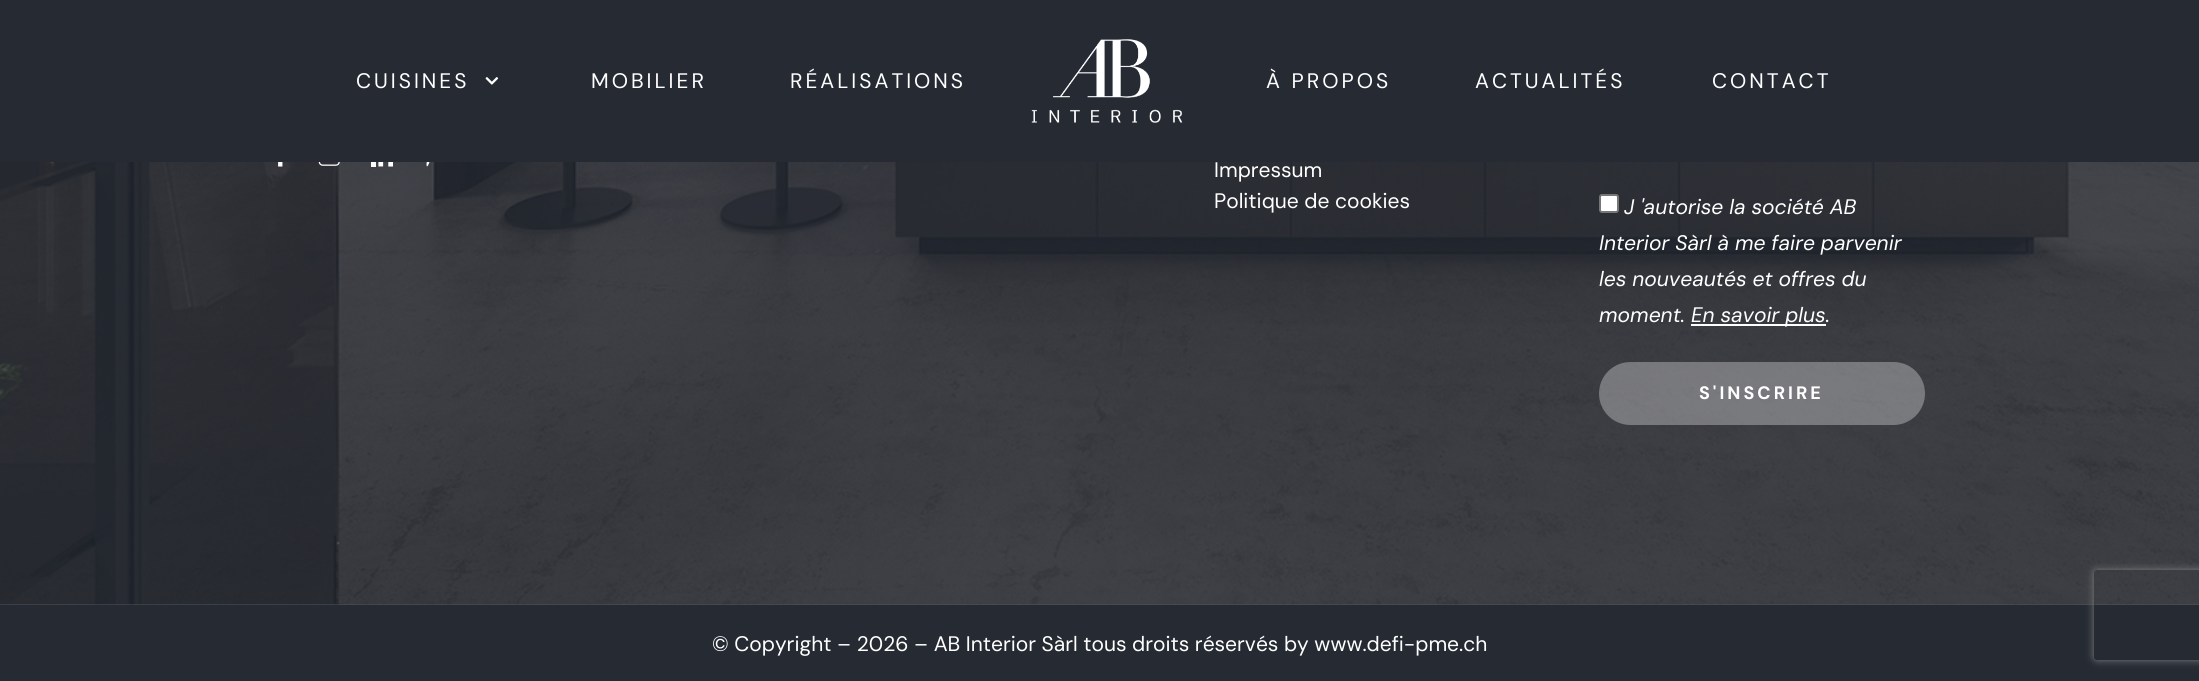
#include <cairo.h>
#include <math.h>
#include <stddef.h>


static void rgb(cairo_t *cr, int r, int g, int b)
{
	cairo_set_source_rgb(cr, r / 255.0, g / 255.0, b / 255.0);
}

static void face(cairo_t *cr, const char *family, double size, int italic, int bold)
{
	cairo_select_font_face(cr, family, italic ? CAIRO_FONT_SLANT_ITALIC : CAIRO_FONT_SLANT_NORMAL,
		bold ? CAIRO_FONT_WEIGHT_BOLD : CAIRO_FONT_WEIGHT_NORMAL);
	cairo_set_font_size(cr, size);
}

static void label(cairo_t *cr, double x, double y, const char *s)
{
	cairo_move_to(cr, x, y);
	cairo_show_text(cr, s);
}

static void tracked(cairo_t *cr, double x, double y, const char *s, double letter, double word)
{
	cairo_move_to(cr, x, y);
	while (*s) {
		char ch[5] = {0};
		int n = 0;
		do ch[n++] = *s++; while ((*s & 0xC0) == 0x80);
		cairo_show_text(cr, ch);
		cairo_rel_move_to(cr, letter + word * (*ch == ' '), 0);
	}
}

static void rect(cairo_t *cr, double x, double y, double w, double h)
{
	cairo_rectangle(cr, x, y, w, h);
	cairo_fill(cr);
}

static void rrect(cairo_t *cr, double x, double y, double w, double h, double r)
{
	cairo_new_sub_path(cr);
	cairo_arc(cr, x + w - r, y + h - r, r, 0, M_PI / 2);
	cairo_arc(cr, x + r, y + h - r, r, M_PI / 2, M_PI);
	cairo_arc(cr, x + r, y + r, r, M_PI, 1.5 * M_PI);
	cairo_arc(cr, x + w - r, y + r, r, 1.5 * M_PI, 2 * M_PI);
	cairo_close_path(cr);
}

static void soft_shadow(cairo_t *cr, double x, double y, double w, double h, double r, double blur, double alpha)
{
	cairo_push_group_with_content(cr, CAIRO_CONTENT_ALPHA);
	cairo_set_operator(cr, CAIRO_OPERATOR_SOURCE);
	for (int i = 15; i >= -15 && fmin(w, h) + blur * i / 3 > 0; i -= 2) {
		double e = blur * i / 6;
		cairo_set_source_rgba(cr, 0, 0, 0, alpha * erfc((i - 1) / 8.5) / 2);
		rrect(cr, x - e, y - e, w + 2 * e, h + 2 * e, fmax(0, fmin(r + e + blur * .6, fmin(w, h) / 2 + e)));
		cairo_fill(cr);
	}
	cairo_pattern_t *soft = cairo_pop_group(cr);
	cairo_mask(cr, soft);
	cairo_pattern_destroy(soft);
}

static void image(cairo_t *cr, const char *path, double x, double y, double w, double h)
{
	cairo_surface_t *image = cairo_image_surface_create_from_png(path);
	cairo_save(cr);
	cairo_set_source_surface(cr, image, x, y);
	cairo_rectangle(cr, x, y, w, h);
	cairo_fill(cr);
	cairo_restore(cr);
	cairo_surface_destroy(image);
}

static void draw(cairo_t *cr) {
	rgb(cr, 81, 85, 92);
	cairo_paint(cr);
	rgb(cr, 37, 42, 51);
	rect(cr, 0, 0, 2199, 162);
	face(cr, "DM Sans", 21, 0, 0);
	rgb(cr, 255, 255, 255);
	tracked(cr, 356, 88, "CUISINES", 3, 0);
	image(cr, "image0.png", 485, 77, 14, 8);
	tracked(cr, 591, 88, "MOBILIER", 3, 0);
	tracked(cr, 790, 88, "RÉALISATIONS", 3, 0);
	image(cr, "image1.png", 1031, 39, 152, 84);
	tracked(cr, 1266, 88, "À PROPOS", 3, 0);
	tracked(cr, 1475, 88, "ACTUALITÉS", 3, 0);
	tracked(cr, 1712, 88, "CONTACT", 3, 0);
	image(cr, "image2.png", 0, 162, 2199, 443);
	image(cr, "image3.png", 278, 162, 5, 5);
	image(cr, "image4.png", 318, 162, 22, 4);
	image(cr, "image5.png", 371, 162, 22, 5);
	image(cr, "image6.png", 426, 162, 4, 5);
	label(cr, 1214, 177, "Impressum");
	label(cr, 1214, 208, "Politique de cookies");
	rrect(cr, 1600, 195, 18, 17, 2);
	cairo_fill_preserve(cr);
	rgb(cr, 118, 118, 118);
	cairo_stroke(cr);
	face(cr, "DM Sans", 21, 1, 0);
	rgb(cr, 255, 255, 255);
	label(cr, 1624, 214, "J 'autorise la société AB");
	label(cr, 1599, 250, "Interior Sàrl à me faire parvenir");
	label(cr, 1599, 286, "les nouveautés et offres du");
	label(cr, 1599, 322, "moment.");
	rect(cr, 1691, 324, 135, 2);
	label(cr, 1691, 322, "En savoir plus.");
	cairo_set_source_rgba(cr, 1, 1, 1, 0.31);
	rrect(cr, 1599, 362, 326, 63, 31.5);
	cairo_fill(cr);
	face(cr, "DM Sans", 18, 0, 1);
	rgb(cr, 255, 255, 255);
	tracked(cr, 1699, 399, "S'INSCRIRE", 3, 0);
	rgb(cr, 37, 42, 51);
	rect(cr, 0, 605, 2199, 76);
	cairo_save(cr);
	cairo_set_fill_rule(cr, CAIRO_FILL_RULE_EVEN_ODD);
	cairo_new_path(cr);
	cairo_move_to(cr, 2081, 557);
	cairo_line_to(cr, 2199, 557);
	cairo_line_to(cr, 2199, 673);
	cairo_line_to(cr, 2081, 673);
	cairo_close_path(cr);
	cairo_move_to(cr, 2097, 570);
	cairo_line_to(cr, 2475, 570);
	cairo_curve_to(cr, 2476.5, 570, 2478, 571.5, 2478, 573);
	cairo_line_to(cr, 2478, 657);
	cairo_curve_to(cr, 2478, 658.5, 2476.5, 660, 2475, 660);
	cairo_line_to(cr, 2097, 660);
	cairo_curve_to(cr, 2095.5, 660, 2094, 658.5, 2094, 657);
	cairo_line_to(cr, 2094, 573);
	cairo_curve_to(cr, 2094, 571.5, 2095.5, 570, 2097, 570);
	cairo_close_path(cr);
	cairo_clip(cr);
	rgb(cr, 128, 128, 128);
	soft_shadow(cr, 2094, 570, 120, 90, 3, 4, 1);
	cairo_restore(cr);
	face(cr, "DM Sans", 21, 0, 0);
	rgb(cr, 255, 255, 255);
	label(cr, 712, 651, "© Copyright – 2026 – AB Interior Sàrl tous droits réservés by www.defi-pme.ch");
}

int main(void) {
	cairo_surface_t *surface = cairo_image_surface_create(CAIRO_FORMAT_RGB24, 2199, 681);
	cairo_t *cr = cairo_create(surface);
	cairo_font_options_t *options = cairo_font_options_create();
	cairo_font_options_set_hint_metrics(options, CAIRO_HINT_METRICS_OFF);
	cairo_font_options_set_hint_style(options, CAIRO_HINT_STYLE_NONE);
	cairo_set_font_options(cr, options);
	cairo_set_miter_limit(cr, 4);
	draw(cr);
	cairo_surface_write_to_png(surface, "render.png");
	cairo_font_options_destroy(options);
	cairo_destroy(cr);
	cairo_surface_destroy(surface);
	return 0;
}
